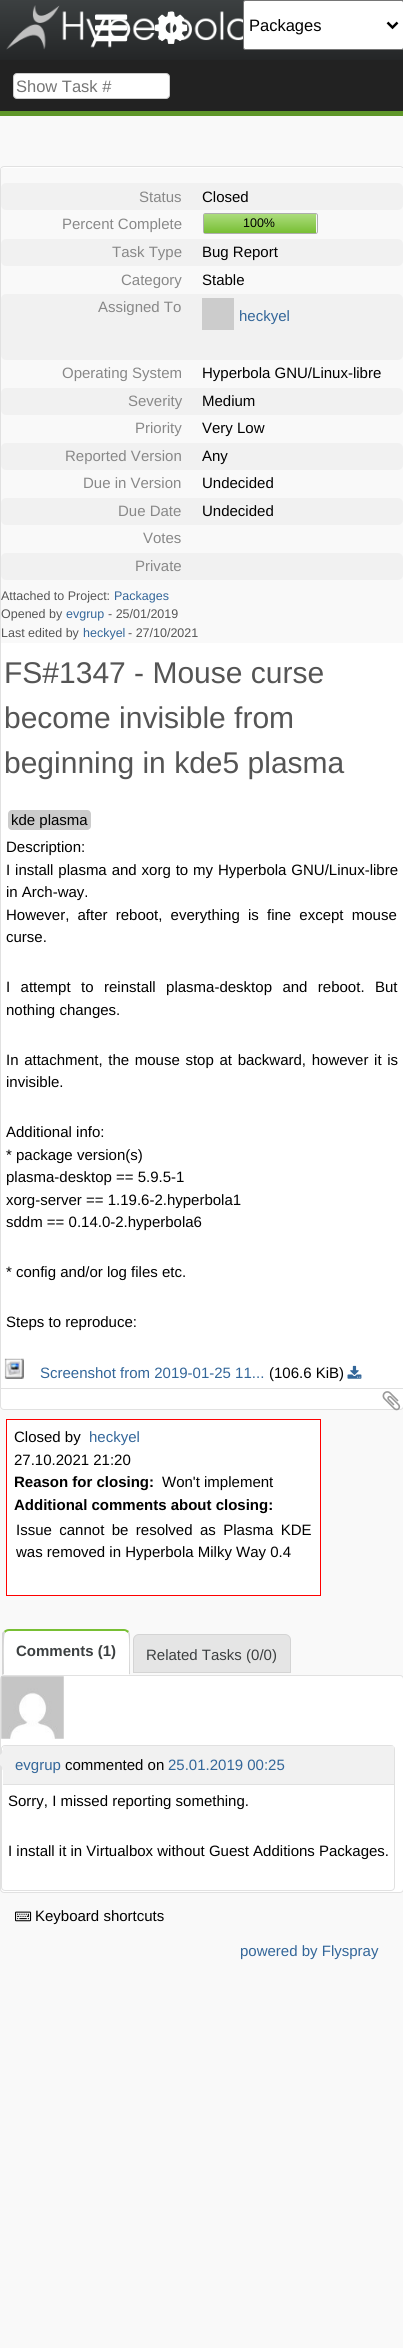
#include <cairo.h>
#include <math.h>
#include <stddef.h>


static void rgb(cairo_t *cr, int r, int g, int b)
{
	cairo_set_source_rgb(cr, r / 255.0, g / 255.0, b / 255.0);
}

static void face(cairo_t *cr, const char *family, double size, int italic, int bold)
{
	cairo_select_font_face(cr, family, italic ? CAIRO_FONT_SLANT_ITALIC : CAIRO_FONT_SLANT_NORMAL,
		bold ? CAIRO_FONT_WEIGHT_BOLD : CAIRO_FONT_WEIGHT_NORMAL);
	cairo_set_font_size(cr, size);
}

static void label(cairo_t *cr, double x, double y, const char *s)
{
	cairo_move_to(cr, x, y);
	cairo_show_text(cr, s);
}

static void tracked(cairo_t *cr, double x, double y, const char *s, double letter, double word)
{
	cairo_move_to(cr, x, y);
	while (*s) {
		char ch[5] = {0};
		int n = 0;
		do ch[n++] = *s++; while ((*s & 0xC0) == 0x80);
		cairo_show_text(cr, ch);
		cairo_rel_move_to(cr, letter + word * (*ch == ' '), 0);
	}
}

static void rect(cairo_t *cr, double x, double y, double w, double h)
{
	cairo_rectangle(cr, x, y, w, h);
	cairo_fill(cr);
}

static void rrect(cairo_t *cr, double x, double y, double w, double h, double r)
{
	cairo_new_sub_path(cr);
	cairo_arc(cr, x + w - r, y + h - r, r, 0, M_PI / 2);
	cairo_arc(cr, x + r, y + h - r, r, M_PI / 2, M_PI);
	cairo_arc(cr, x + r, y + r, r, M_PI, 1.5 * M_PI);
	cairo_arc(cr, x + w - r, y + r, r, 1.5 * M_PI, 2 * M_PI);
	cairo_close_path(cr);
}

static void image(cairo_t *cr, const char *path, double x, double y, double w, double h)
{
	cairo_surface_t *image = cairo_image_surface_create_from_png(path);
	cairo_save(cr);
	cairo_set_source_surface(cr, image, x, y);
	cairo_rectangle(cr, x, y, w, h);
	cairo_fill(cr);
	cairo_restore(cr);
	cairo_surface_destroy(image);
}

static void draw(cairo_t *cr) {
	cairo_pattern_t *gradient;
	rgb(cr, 249, 249, 249);
	cairo_paint(cr);
	gradient = cairo_pattern_create_linear(202, 0, 202, 60);
	cairo_pattern_add_color_stop_rgba(gradient, 0, 0.235, 0.251, 0.255, 1);
	cairo_pattern_add_color_stop_rgba(gradient, 1, 0.141, 0.149, 0.153, 1);
	cairo_set_source(cr, gradient);
	cairo_pattern_destroy(gradient);
	rect(cr, 0, 0, 403, 60);
	image(cr, "image0.png", 6, 5, 237, 45);
	image(cr, "image1.png", 155, 11, 33, 33);
	rgb(cr, 34, 34, 34);
	rect(cr, 0, 60, 403, 51);
	rgb(cr, 95, 151, 41);
	rect(cr, 0, 111, 403, 5);
	image(cr, "image2.png", 95, 14, 33, 28);
	rgb(cr, 255, 255, 255);
	rrect(cr, 243.5, 0.5, 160, 49, 2);
	cairo_fill_preserve(cr);
	rgb(cr, 118, 118, 118);
	cairo_set_line_width(cr, 1);
	cairo_stroke(cr);
	cairo_new_path(cr);
	cairo_move_to(cr, 387.5, 22.5);
	cairo_line_to(cr, 392.5, 27.5);
	cairo_line_to(cr, 397.5, 22.5);
	rgb(cr, 0, 0, 0);
	cairo_set_line_width(cr, 2.5);
	cairo_stroke(cr);
	face(cr, "Liberation Sans", 16.5, 0, 0);
	label(cr, 249, 31, "Packages");
	rgb(cr, 255, 255, 255);
	rrect(cr, 13.5, 73.5, 156, 25, 3.5);
	cairo_fill_preserve(cr);
	rgb(cr, 204, 204, 204);
	cairo_set_line_width(cr, 1);
	cairo_stroke(cr);
	rgb(cr, 117, 117, 117);
	label(cr, 16, 92, "Show Task #");
	rgb(cr, 255, 255, 255);
	rrect(cr, 0.5, 166.5, 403, 1243, 3.5);
	cairo_fill_preserve(cr);
	rgb(cr, 225, 225, 225);
	cairo_stroke(cr);
	rgb(cr, 249, 249, 249);
	rect(cr, 1, 168, 402, 475);
	rgb(cr, 241, 241, 241);
	rrect(cr, 1, 183, 402, 27, 5);
	cairo_fill(cr);
	face(cr, "Liberation Sans", 15, 0, 0);
	rgb(cr, 136, 136, 136);
	label(cr, 139, 202, "Status");
	rgb(cr, 0, 0, 0);
	label(cr, 202, 202, "Closed");
	rgb(cr, 136, 136, 136);
	label(cr, 62, 229, "Percent Complete");
	rrect(cr, 203.5, 213.5, 114, 20, 2);
	rgb(cr, 174, 174, 174);
	cairo_stroke(cr);
	gradient = cairo_pattern_create_linear(260, 214, 260, 233);
	cairo_pattern_add_color_stop_rgba(gradient, 0, 0.675, 0.863, 0.49, 1);
	cairo_pattern_add_color_stop_rgba(gradient, 1, 0.471, 0.749, 0.204, 1);
	cairo_set_source(cr, gradient);
	cairo_pattern_destroy(gradient);
	rect(cr, 204, 214, 112, 19);
	face(cr, "Liberation Sans", 12.5, 0, 0);
	rgb(cr, 0, 0, 0);
	label(cr, 243, 227, "100%");
	rgb(cr, 241, 241, 241);
	rrect(cr, 1, 239, 402, 27, 5);
	cairo_fill(cr);
	face(cr, "Liberation Sans", 15, 0, 0);
	rgb(cr, 136, 136, 136);
	label(cr, 112, 257, "Task Type");
	rgb(cr, 0, 0, 0);
	label(cr, 202, 257, "Bug Report");
	rgb(cr, 136, 136, 136);
	label(cr, 121, 285, "Category");
	rgb(cr, 0, 0, 0);
	label(cr, 202, 285, "Stable");
	rgb(cr, 241, 241, 241);
	rrect(cr, 1, 294, 402, 66, 5);
	cairo_fill(cr);
	rgb(cr, 136, 136, 136);
	label(cr, 98, 312, "Assigned To");
	rgb(cr, 204, 204, 204);
	rect(cr, 202, 298, 32, 32);
	rgb(cr, 51, 102, 153);
	label(cr, 239, 321, "heckyel");
	rgb(cr, 136, 136, 136);
	label(cr, 62, 378, "Operating System");
	rgb(cr, 0, 0, 0);
	label(cr, 202, 378, "Hyperbola GNU/Linux-libre");
	rgb(cr, 241, 241, 241);
	rrect(cr, 1, 388, 402, 27, 5);
	cairo_fill(cr);
	rgb(cr, 136, 136, 136);
	label(cr, 128, 406, "Severity");
	rgb(cr, 0, 0, 0);
	label(cr, 202, 406, "Medium");
	rgb(cr, 136, 136, 136);
	label(cr, 135, 433, "Priority");
	rgb(cr, 0, 0, 0);
	label(cr, 202, 433, "Very Low");
	rgb(cr, 241, 241, 241);
	rrect(cr, 1, 443, 402, 27, 5);
	cairo_fill(cr);
	rgb(cr, 136, 136, 136);
	label(cr, 65, 461, "Reported Version");
	rgb(cr, 0, 0, 0);
	label(cr, 202, 461, "Any");
	rgb(cr, 136, 136, 136);
	label(cr, 83, 488, "Due in Version");
	rgb(cr, 0, 0, 0);
	label(cr, 202, 488, "Undecided");
	rgb(cr, 241, 241, 241);
	rrect(cr, 1, 498, 402, 27, 5);
	cairo_fill(cr);
	rgb(cr, 136, 136, 136);
	label(cr, 118, 516, "Due Date");
	rgb(cr, 0, 0, 0);
	label(cr, 202, 516, "Undecided");
	rgb(cr, 136, 136, 136);
	label(cr, 143, 543, "Votes");
	rgb(cr, 241, 241, 241);
	rrect(cr, 1, 553, 402, 27, 5);
	cairo_fill(cr);
	rgb(cr, 136, 136, 136);
	label(cr, 135, 571, "Private");
	face(cr, "Liberation Sans", 12.5, 0, 0);
	rgb(cr, 85, 85, 85);
	label(cr, 1, 600, "Attached to Project:");
	rgb(cr, 51, 102, 153);
	label(cr, 114, 600, "Packages");
	rgb(cr, 85, 85, 85);
	label(cr, 1, 618, "Opened by");
	rgb(cr, 51, 102, 153);
	label(cr, 66, 618, "evgrup");
	rgb(cr, 85, 85, 85);
	label(cr, 108, 618, "- 25/01/2019");
	label(cr, 1, 637, "Last edited by");
	rgb(cr, 51, 102, 153);
	label(cr, 83, 637, "heckyel");
	rgb(cr, 85, 85, 85);
	label(cr, 128, 637, "- 27/10/2021");
	face(cr, "Liberation Sans", 30, 0, 0);
	label(cr, 4, 683, "FS#1347 - Mouse curse");
	label(cr, 4, 728, "become invisible from");
	label(cr, 4, 773, "beginning in kde5 plasma");
	rgb(cr, 204, 204, 204);
	rrect(cr, 8, 810, 83, 20, 4);
	cairo_fill(cr);
	face(cr, "Liberation Sans", 15, 0, 0);
	rgb(cr, 0, 0, 0);
	label(cr, 11, 825, "kde plasma");
	label(cr, 6, 852, "Description:");
	tracked(cr, 6, 875, "I install plasma and xorg to my Hyperbola GNU/Linux-libre", 0, 0.75);
	label(cr, 6, 897, "in Arch-way.");
	tracked(cr, 6, 920, "However, after reboot, everything is fine except mouse", 0, 4);
	label(cr, 6, 942, "curse.");
	tracked(cr, 6, 992, "I attempt to reinstall plasma-desktop and reboot. But", 0, 6.25);
	label(cr, 6, 1015, "nothing changes.");
	tracked(cr, 6, 1065, "In attachment, the mouse stop at backward, however it is", 0, 1.5);
	label(cr, 6, 1087, "invisible.");
	label(cr, 6, 1137, "Additional info:");
	label(cr, 6, 1160, "* package version(s)");
	label(cr, 6, 1182, "plasma-desktop == 5.9.5-1");
	label(cr, 6, 1205, "xorg-server == 1.19.6-2.hyperbola1");
	label(cr, 6, 1227, "sddm == 0.14.0-2.hyperbola6");
	label(cr, 6, 1277, "* config and/or log files etc.");
	label(cr, 6, 1327, "Steps to reproduce:");
	image(cr, "image3.png", 4, 1358, 20, 21);
	rgb(cr, 51, 102, 153);
	label(cr, 40, 1378, "Screenshot from 2019-01-25 11...");
	rgb(cr, 0, 0, 0);
	label(cr, 269, 1378, "(106.6 KiB)");
	image(cr, "image4.png", 347, 1365, 15, 14);
	image(cr, "image5.png", 382, 1391, 19, 20);
	rgb(cr, 225, 225, 225);
	rect(cr, 1, 1388, 402, 1);
	rgb(cr, 255, 255, 255);
	cairo_rectangle(cr, 6.5, 1419.5, 314, 176);
	cairo_fill_preserve(cr);
	rgb(cr, 255, 0, 0);
	cairo_stroke(cr);
	rgb(cr, 0, 0, 0);
	label(cr, 14, 1442, "Closed by");
	rgb(cr, 51, 102, 153);
	label(cr, 89, 1442, "heckyel");
	rgb(cr, 0, 0, 0);
	label(cr, 14, 1465, "27.10.2021 21:20");
	face(cr, "Liberation Sans", 15, 0, 1);
	label(cr, 14, 1487, "Reason for closing:");
	face(cr, "Liberation Sans", 15, 0, 0);
	label(cr, 162, 1487, "Won't implement");
	face(cr, "Liberation Sans", 15, 0, 1);
	label(cr, 14, 1510, "Additional comments about closing:");
	face(cr, "Liberation Sans", 15, 0, 0);
	tracked(cr, 16, 1535, "Issue cannot be resolved as Plasma KDE", 0, 3.25);
	label(cr, 16, 1557, "was removed in Hyperbola Milky Way 0.4");
	rgb(cr, 255, 255, 255);
	cairo_new_path(cr);
	cairo_move_to(cr, 9, 1631);
	cairo_line_to(cr, 124, 1631);
	cairo_curve_to(cr, 127, 1631, 129, 1633, 129, 1635);
	cairo_line_to(cr, 129, 1674);
	cairo_line_to(cr, 4, 1674);
	cairo_line_to(cr, 4, 1635);
	cairo_curve_to(cr, 4, 1633, 6, 1631, 9, 1631);
	cairo_close_path(cr);
	cairo_fill(cr);
	rgb(cr, 120, 191, 52);
	cairo_new_path(cr);
	cairo_move_to(cr, 9, 1629);
	cairo_curve_to(cr, 7, 1629, 5, 1630, 4, 1631);
	cairo_line_to(cr, 5, 1633);
	cairo_curve_to(cr, 6, 1632, 7, 1631, 9, 1631);
	cairo_line_to(cr, 125, 1631);
	cairo_line_to(cr, 128, 1633);
	cairo_line_to(cr, 129, 1631);
	cairo_curve_to(cr, 127, 1630, 126, 1629, 124, 1629);
	cairo_close_path(cr);
	cairo_fill(cr);
	rgb(cr, 212, 212, 212);
	cairo_new_path(cr);
	cairo_move_to(cr, 129, 1631);
	cairo_curve_to(cr, 129, 1632, 130, 1634, 130, 1635);
	cairo_line_to(cr, 130, 1675);
	cairo_line_to(cr, 129, 1674);
	cairo_curve_to(cr, 129, 1668, 130, 1635, 128, 1633);
	cairo_close_path(cr);
	cairo_fill(cr);
	rgb(cr, 255, 255, 255);
	cairo_new_path(cr);
	cairo_move_to(cr, 130, 1675);
	cairo_line_to(cr, 129, 1674);
	cairo_line_to(cr, 4, 1674);
	cairo_line_to(cr, 2, 1675);
	cairo_close_path(cr);
	cairo_fill(cr);
	rgb(cr, 212, 212, 212);
	cairo_new_path(cr);
	cairo_move_to(cr, 2, 1675);
	cairo_line_to(cr, 4, 1674);
	cairo_curve_to(cr, 4, 1668, 3, 1635, 5, 1633);
	cairo_line_to(cr, 4, 1631);
	cairo_line_to(cr, 2, 1633);
	cairo_close_path(cr);
	cairo_fill(cr);
	face(cr, "Liberation Sans", 15, 0, 1);
	rgb(cr, 60, 64, 65);
	label(cr, 16, 1656, "Comments (1)");
	rgb(cr, 229, 229, 229);
	cairo_new_path(cr);
	cairo_move_to(cr, 139, 1634.5);
	cairo_line_to(cr, 285, 1634.5);
	cairo_curve_to(cr, 288, 1634.5, 290.5, 1637, 290.5, 1640);
	cairo_line_to(cr, 290.5, 1672.5);
	cairo_line_to(cr, 133.5, 1672.5);
	cairo_line_to(cr, 133.5, 1640);
	cairo_curve_to(cr, 133.5, 1637, 136, 1634.5, 139, 1634.5);
	cairo_close_path(cr);
	cairo_fill_preserve(cr);
	rgb(cr, 212, 212, 212);
	cairo_stroke(cr);
	face(cr, "Liberation Sans", 15, 0, 0);
	rgb(cr, 60, 64, 65);
	label(cr, 146, 1660, "Related Tasks (0/0)");
	rgb(cr, 255, 255, 255);
	rrect(cr, 0.5, 1675.5, 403, 217, 3.5);
	cairo_fill_preserve(cr);
	rgb(cr, 225, 225, 225);
	cairo_stroke(cr);
	image(cr, "image6.png", 1, 1676, 63, 63);
	rrect(cr, 1.5, 1745.5, 393, 145, 3.5);
	cairo_stroke(cr);
	cairo_new_path(cr);
	cairo_move_to(cr, 2.5, 1750);
	cairo_line_to(cr, 2.5, 1770);
	cairo_line_to(cr, -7.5, 1760);
	cairo_close_path(cr);
	cairo_fill(cr);
	rgb(cr, 241, 241, 241);
	cairo_new_path(cr);
	cairo_move_to(cr, 2.5, 1752.5);
	cairo_line_to(cr, 2.5, 1767.5);
	cairo_line_to(cr, -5, 1760);
	cairo_close_path(cr);
	cairo_fill(cr);
	rect(cr, 3, 1746, 391, 38);
	rgb(cr, 225, 225, 225);
	rect(cr, 3, 1784, 391, 1);
	rgb(cr, 51, 102, 153);
	label(cr, 15, 1770, "evgrup");
	rgb(cr, 0, 0, 0);
	label(cr, 65, 1770, "commented on");
	rgb(cr, 51, 102, 153);
	label(cr, 168, 1770, "25.01.2019 00:25");
	rgb(cr, 0, 0, 0);
	label(cr, 8, 1806, "Sorry, I missed reporting something.");
	label(cr, 8, 1856, "I install it in Virtualbox without Guest Additions Packages.");
	image(cr, "image7.png", 15, 1911, 17, 11);
	label(cr, 35, 1921, "Keyboard shortcuts");
	rgb(cr, 51, 102, 153);
	label(cr, 240, 1956, "powered by Flyspray");
}

int main(void) {
	cairo_surface_t *surface = cairo_image_surface_create(CAIRO_FORMAT_RGB24, 403, 2348);
	cairo_t *cr = cairo_create(surface);
	cairo_font_options_t *options = cairo_font_options_create();
	cairo_font_options_set_hint_metrics(options, CAIRO_HINT_METRICS_OFF);
	cairo_font_options_set_hint_style(options, CAIRO_HINT_STYLE_NONE);
	cairo_set_font_options(cr, options);
	cairo_set_miter_limit(cr, 4);
	draw(cr);
	cairo_surface_write_to_png(surface, "render.png");
	cairo_font_options_destroy(options);
	cairo_destroy(cr);
	cairo_surface_destroy(surface);
	return 0;
}
